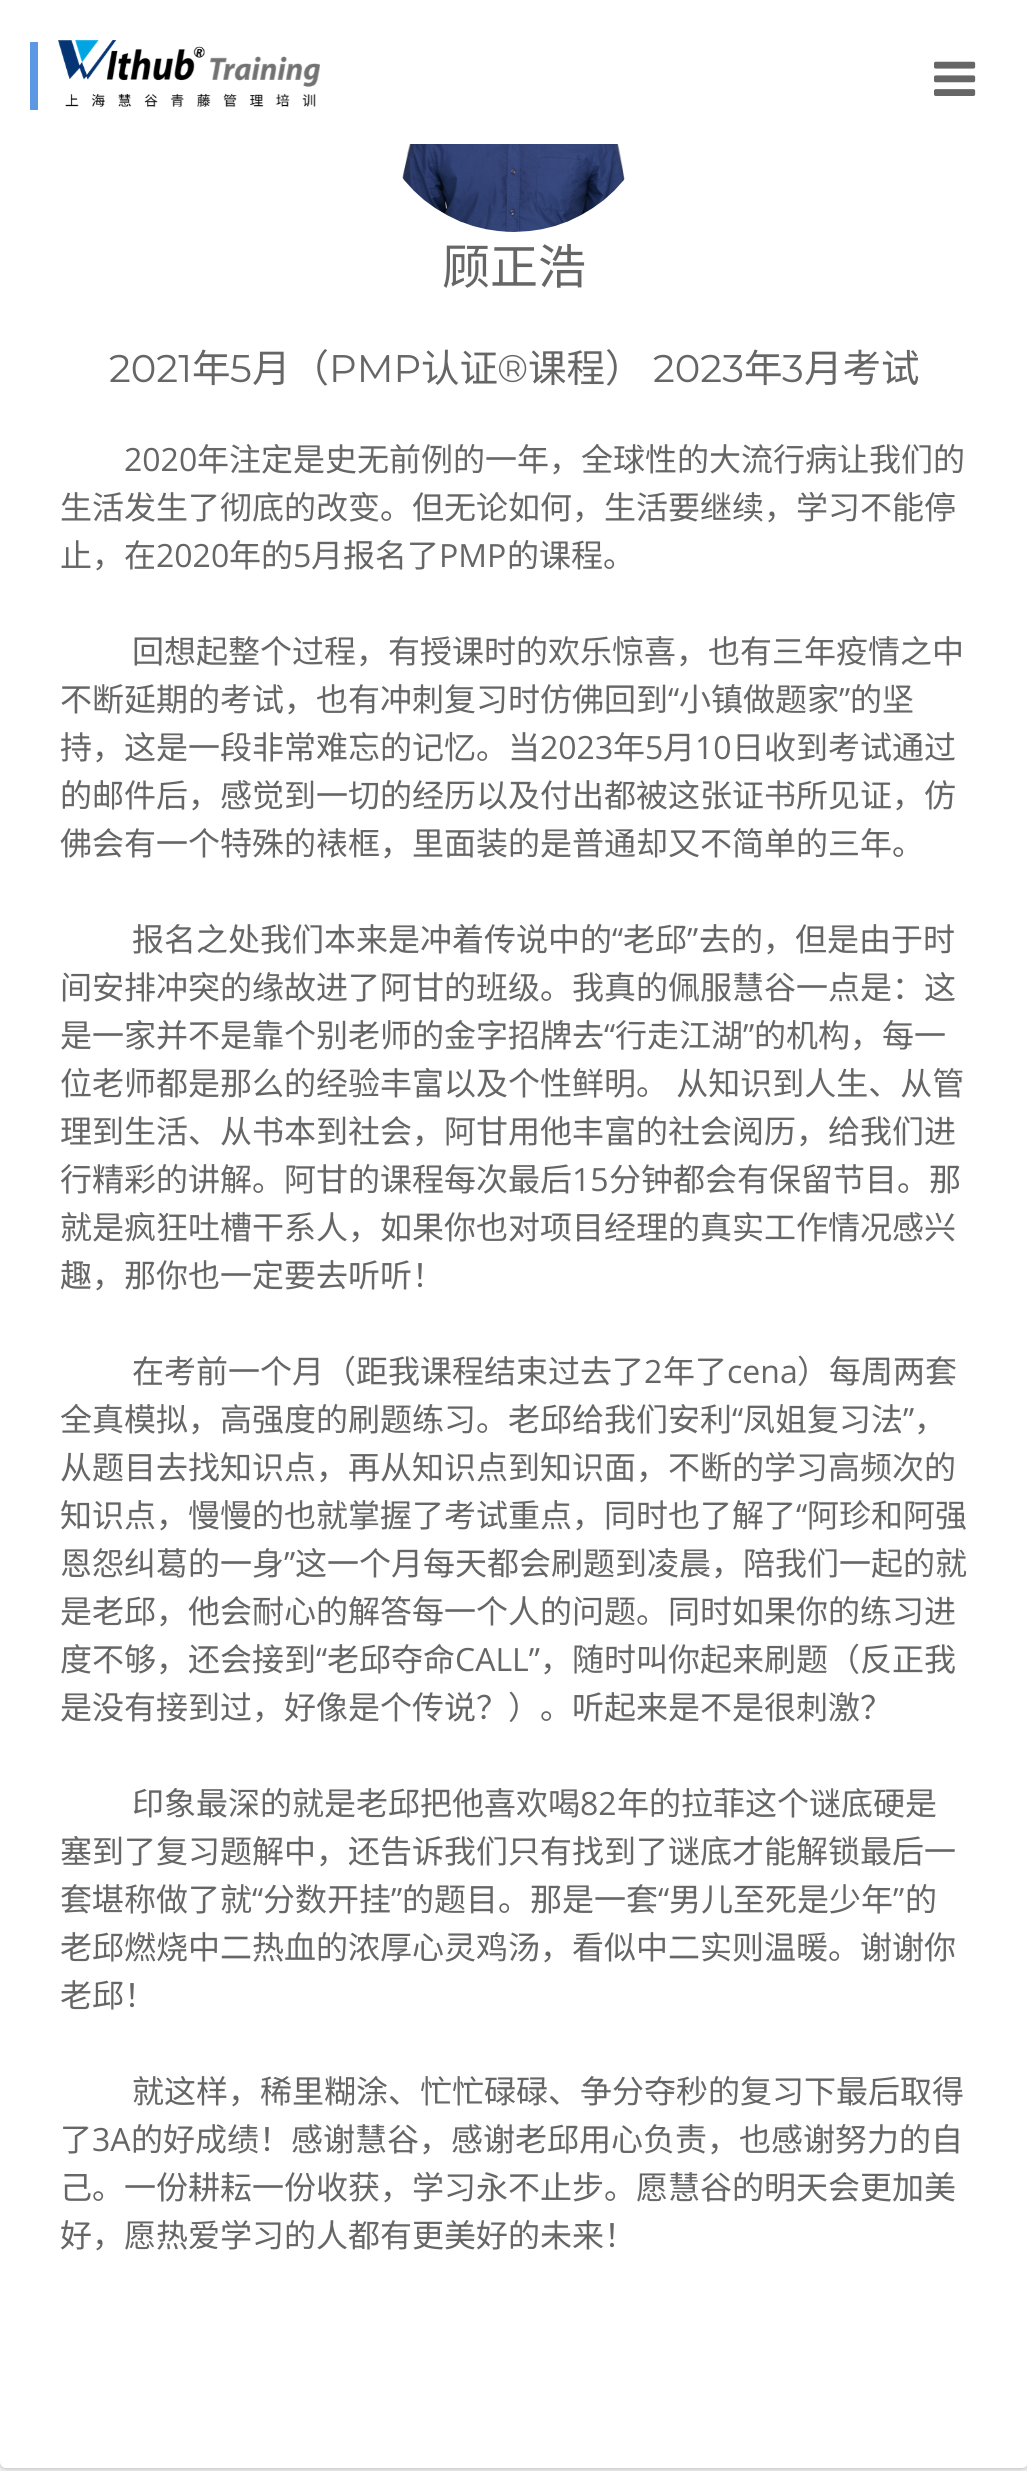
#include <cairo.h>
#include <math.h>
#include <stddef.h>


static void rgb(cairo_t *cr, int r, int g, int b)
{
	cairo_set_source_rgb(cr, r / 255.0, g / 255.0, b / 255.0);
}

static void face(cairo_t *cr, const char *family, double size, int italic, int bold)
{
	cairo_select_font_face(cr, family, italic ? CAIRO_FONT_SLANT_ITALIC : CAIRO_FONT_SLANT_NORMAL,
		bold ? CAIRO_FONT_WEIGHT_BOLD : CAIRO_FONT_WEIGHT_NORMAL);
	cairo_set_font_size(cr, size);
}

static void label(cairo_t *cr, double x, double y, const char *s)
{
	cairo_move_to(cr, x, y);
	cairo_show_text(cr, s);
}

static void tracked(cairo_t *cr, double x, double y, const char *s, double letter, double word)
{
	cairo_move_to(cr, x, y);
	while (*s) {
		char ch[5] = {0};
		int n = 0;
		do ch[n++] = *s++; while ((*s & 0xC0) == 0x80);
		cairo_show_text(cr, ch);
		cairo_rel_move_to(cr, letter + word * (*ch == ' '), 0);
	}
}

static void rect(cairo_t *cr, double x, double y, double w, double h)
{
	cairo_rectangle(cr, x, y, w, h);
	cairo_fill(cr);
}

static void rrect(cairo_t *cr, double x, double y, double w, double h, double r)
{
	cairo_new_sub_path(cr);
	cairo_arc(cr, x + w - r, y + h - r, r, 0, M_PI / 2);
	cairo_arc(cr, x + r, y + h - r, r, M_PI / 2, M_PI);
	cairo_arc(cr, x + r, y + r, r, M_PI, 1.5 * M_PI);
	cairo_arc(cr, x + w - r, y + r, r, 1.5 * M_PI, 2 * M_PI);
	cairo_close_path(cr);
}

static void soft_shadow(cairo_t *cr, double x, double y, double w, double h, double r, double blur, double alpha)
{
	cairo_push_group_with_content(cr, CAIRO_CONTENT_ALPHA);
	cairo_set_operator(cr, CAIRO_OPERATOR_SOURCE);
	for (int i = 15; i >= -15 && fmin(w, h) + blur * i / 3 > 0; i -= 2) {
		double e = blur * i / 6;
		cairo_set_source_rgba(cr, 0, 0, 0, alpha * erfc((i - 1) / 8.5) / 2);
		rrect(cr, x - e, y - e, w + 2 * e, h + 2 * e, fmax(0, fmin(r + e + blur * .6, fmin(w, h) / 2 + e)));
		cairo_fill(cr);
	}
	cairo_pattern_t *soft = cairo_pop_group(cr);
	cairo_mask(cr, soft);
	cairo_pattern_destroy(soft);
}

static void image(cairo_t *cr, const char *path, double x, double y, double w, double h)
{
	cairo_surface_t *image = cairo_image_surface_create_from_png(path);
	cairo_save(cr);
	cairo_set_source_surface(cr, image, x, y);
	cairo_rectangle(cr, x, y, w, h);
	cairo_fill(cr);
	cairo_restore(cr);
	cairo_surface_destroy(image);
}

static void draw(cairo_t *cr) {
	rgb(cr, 242, 242, 242);
	cairo_paint(cr);
	rgb(cr, 0, 0, 0);
	soft_shadow(cr, 0, -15, 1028, 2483, 6, 3, 0.3);
	rgb(cr, 255, 255, 255);
	rrect(cr, 0, -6, 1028, 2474, 6);
	cairo_fill(cr);
	rgb(cr, 92, 152, 228);
	rect(cr, 30, 42, 8, 68);
	image(cr, "image0.png", 58, 40, 262, 67);
	image(cr, "image1.png", 934, 61, 42, 35);
	image(cr, "image2.png", 402, 144, 223, 88);
	face(cr, "Noto Sans CJK SC", 48, 0, 0);
	rgb(cr, 102, 102, 102);
	label(cr, 442, 284, "顾正浩");
	face(cr, "Montserrat", 38.5, 0, 0);
	label(cr, 109, 382, "2021");
	face(cr, "Noto Sans CJK SC", 38.5, 0, 0);
	label(cr, 192, 382, "年");
	face(cr, "Montserrat", 38.5, 0, 0);
	label(cr, 230, 382, "5");
	face(cr, "Noto Sans CJK SC", 38.5, 0, 0);
	label(cr, 252, 382, "月（");
	face(cr, "Montserrat", 38.5, 0, 0);
	label(cr, 329, 382, "PMP");
	face(cr, "Noto Sans CJK SC", 38.5, 0, 0);
	label(cr, 421, 382, "认证");
	face(cr, "Montserrat", 38.5, 0, 0);
	label(cr, 497, 382, "®");
	face(cr, "Noto Sans CJK SC", 38.5, 0, 0);
	label(cr, 528, 382, "课程）");
	face(cr, "Montserrat", 38.5, 0, 0);
	label(cr, 653, 382, "2023");
	face(cr, "Noto Sans CJK SC", 38.5, 0, 0);
	label(cr, 744, 382, "年");
	face(cr, "Montserrat", 38.5, 0, 0);
	label(cr, 782, 382, "3");
	face(cr, "Noto Sans CJK SC", 38.5, 0, 0);
	label(cr, 804, 382, "月考试");
	face(cr, "Open Sans", 32, 0, 0);
	label(cr, 124, 471, "2020");
	face(cr, "Noto Sans CJK SC", 32, 0, 0);
	label(cr, 197, 471, "年注定是史无前例的一年，全球性的大流行病让我们的");
	label(cr, 60, 519, "生活发生了彻底的改变。但无论如何，生活要继续，学习不能停");
	label(cr, 60, 567, "止，在");
	face(cr, "Open Sans", 32, 0, 0);
	label(cr, 156, 567, "2020");
	face(cr, "Noto Sans CJK SC", 32, 0, 0);
	label(cr, 229, 567, "年的");
	face(cr, "Open Sans", 32, 0, 0);
	label(cr, 293, 567, "5");
	face(cr, "Noto Sans CJK SC", 32, 0, 0);
	label(cr, 311, 567, "月报名了");
	face(cr, "Open Sans", 32, 0, 0);
	label(cr, 439, 567, "PMP");
	face(cr, "Noto Sans CJK SC", 32, 0, 0);
	label(cr, 507, 567, "的课程。");
	label(cr, 132, 663, "回想起整个过程，有授课时的欢乐惊喜，也有三年疫情之中");
	label(cr, 60, 711, "不断延期的考试，也有冲刺复习时仿佛回到");
	face(cr, "Open Sans", 32, 0, 0);
	label(cr, 668, 711, "“");
	face(cr, "Noto Sans CJK SC", 32, 0, 0);
	label(cr, 679, 711, "小镇做题家");
	face(cr, "Open Sans", 32, 0, 0);
	label(cr, 839, 711, "”");
	face(cr, "Noto Sans CJK SC", 32, 0, 0);
	label(cr, 850, 711, "的坚");
	label(cr, 60, 759, "持，这是一段非常难忘的记忆。当");
	face(cr, "Open Sans", 32, 0, 0);
	label(cr, 540, 759, "2023");
	face(cr, "Noto Sans CJK SC", 32, 0, 0);
	label(cr, 613, 759, "年");
	face(cr, "Open Sans", 32, 0, 0);
	label(cr, 645, 759, "5");
	face(cr, "Noto Sans CJK SC", 32, 0, 0);
	label(cr, 663, 759, "月");
	face(cr, "Open Sans", 32, 0, 0);
	label(cr, 695, 759, "10");
	face(cr, "Noto Sans CJK SC", 32, 0, 0);
	label(cr, 732, 759, "日收到考试通过");
	label(cr, 60, 807, "的邮件后，感觉到一切的经历以及付出都被这张证书所见证，仿");
	label(cr, 60, 855, "佛会有一个特殊的裱框，里面装的是普通却又不简单的三年。");
	label(cr, 132, 951, "报名之处我们本来是冲着传说中的");
	face(cr, "Open Sans", 32, 0, 0);
	label(cr, 612, 951, "“");
	face(cr, "Noto Sans CJK SC", 32, 0, 0);
	label(cr, 623, 951, "老邱");
	face(cr, "Open Sans", 32, 0, 0);
	label(cr, 687, 951, "”");
	face(cr, "Noto Sans CJK SC", 32, 0, 0);
	label(cr, 699, 951, "去的，但是由于时");
	label(cr, 60, 999, "间安排冲突的缘故进了阿甘的班级。我真的佩服慧谷一点是：这");
	label(cr, 60, 1047, "是一家并不是靠个别老师的金字招牌去");
	face(cr, "Open Sans", 32, 0, 0);
	label(cr, 604, 1047, "“");
	face(cr, "Noto Sans CJK SC", 32, 0, 0);
	label(cr, 615, 1047, "行走江湖");
	face(cr, "Open Sans", 32, 0, 0);
	label(cr, 743, 1047, "”");
	face(cr, "Noto Sans CJK SC", 32, 0, 0);
	label(cr, 754, 1047, "的机构，每一");
	tracked(cr, 60, 1095, "位老师都是那么的经验丰富以及个性鲜明。 从知识到人生、从管", 0, 1);
	label(cr, 60, 1143, "理到生活、从书本到社会，阿甘用他丰富的社会阅历，给我们进");
	label(cr, 60, 1191, "行精彩的讲解。阿甘的课程每次最后");
	face(cr, "Open Sans", 32, 0, 0);
	label(cr, 572, 1191, "15");
	face(cr, "Noto Sans CJK SC", 32, 0, 0);
	label(cr, 609, 1191, "分钟都会有保留节目。那");
	label(cr, 60, 1239, "就是疯狂吐槽干系人，如果你也对项目经理的真实工作情况感兴");
	label(cr, 60, 1287, "趣，那你也一定要去听听！");
	label(cr, 132, 1383, "在考前一个月（距我课程结束过去了");
	face(cr, "Open Sans", 32, 0, 0);
	label(cr, 644, 1383, "2");
	face(cr, "Noto Sans CJK SC", 32, 0, 0);
	label(cr, 663, 1383, "年了");
	face(cr, "Open Sans", 32, 0, 0);
	label(cr, 727, 1383, "cena");
	face(cr, "Noto Sans CJK SC", 32, 0, 0);
	label(cr, 797, 1383, "）每周两套");
	label(cr, 60, 1431, "全真模拟，高强度的刷题练习。老邱给我们安利");
	face(cr, "Open Sans", 32, 0, 0);
	label(cr, 732, 1431, "“");
	face(cr, "Noto Sans CJK SC", 32, 0, 0);
	label(cr, 743, 1431, "凤姐复习法");
	face(cr, "Open Sans", 32, 0, 0);
	label(cr, 903, 1431, "”");
	face(cr, "Noto Sans CJK SC", 32, 0, 0);
	label(cr, 914, 1431, "，");
	label(cr, 60, 1479, "从题目去找知识点，再从知识点到知识面，不断的学习高频次的");
	label(cr, 60, 1527, "知识点，慢慢的也就掌握了考试重点，同时也了解了");
	face(cr, "Open Sans", 32, 0, 0);
	label(cr, 796, 1527, "“");
	face(cr, "Noto Sans CJK SC", 32, 0, 0);
	label(cr, 807, 1527, "阿珍和阿强");
	label(cr, 60, 1575, "恩怨纠葛的一身");
	face(cr, "Open Sans", 32, 0, 0);
	label(cr, 284, 1575, "”");
	face(cr, "Noto Sans CJK SC", 32, 0, 0);
	label(cr, 295, 1575, "这一个月每天都会刷题到凌晨，陪我们一起的就");
	label(cr, 60, 1623, "是老邱，他会耐心的解答每一个人的问题。同时如果你的练习进");
	label(cr, 60, 1671, "度不够，还会接到");
	face(cr, "Open Sans", 32, 0, 0);
	label(cr, 316, 1671, "“");
	face(cr, "Noto Sans CJK SC", 32, 0, 0);
	label(cr, 327, 1671, "老邱夺命");
	face(cr, "Open Sans", 32, 0, 0);
	label(cr, 455, 1671, "CALL”");
	face(cr, "Noto Sans CJK SC", 32, 0, 0);
	label(cr, 540, 1671, "，随时叫你起来刷题（反正我");
	label(cr, 60, 1719, "是没有接到过，好像是个传说？）。听起来是不是很刺激？");
	label(cr, 132, 1815, "印象最深的就是老邱把他喜欢喝");
	face(cr, "Open Sans", 32, 0, 0);
	label(cr, 580, 1815, "82");
	face(cr, "Noto Sans CJK SC", 32, 0, 0);
	label(cr, 617, 1815, "年的拉菲这个谜底硬是");
	label(cr, 60, 1863, "塞到了复习题解中，还告诉我们只有找到了谜底才能解锁最后一");
	label(cr, 60, 1911, "套堪称做了就");
	face(cr, "Open Sans", 32, 0, 0);
	label(cr, 252, 1911, "“");
	face(cr, "Noto Sans CJK SC", 32, 0, 0);
	label(cr, 263, 1911, "分数开挂");
	face(cr, "Open Sans", 32, 0, 0);
	label(cr, 391, 1911, "”");
	face(cr, "Noto Sans CJK SC", 32, 0, 0);
	label(cr, 402, 1911, "的题目。那是一套");
	face(cr, "Open Sans", 32, 0, 0);
	label(cr, 658, 1911, "“");
	face(cr, "Noto Sans CJK SC", 32, 0, 0);
	label(cr, 669, 1911, "男儿至死是少年");
	face(cr, "Open Sans", 32, 0, 0);
	label(cr, 893, 1911, "”");
	face(cr, "Noto Sans CJK SC", 32, 0, 0);
	label(cr, 905, 1911, "的");
	label(cr, 60, 1959, "老邱燃烧中二热血的浓厚心灵鸡汤，看似中二实则温暖。谢谢你");
	label(cr, 60, 2007, "老邱！");
	label(cr, 132, 2103, "就这样，稀里糊涂、忙忙碌碌、争分夺秒的复习下最后取得");
	label(cr, 60, 2151, "了");
	face(cr, "Open Sans", 32, 0, 0);
	label(cr, 92, 2151, "3A");
	face(cr, "Noto Sans CJK SC", 32, 0, 0);
	label(cr, 131, 2151, "的好成绩！感谢慧谷，感谢老邱用心负责，也感谢努力的自");
	label(cr, 60, 2199, "己。一份耕耘一份收获，学习永不止步。愿慧谷的明天会更加美");
	label(cr, 60, 2247, "好，愿热爱学习的人都有更美好的未来！");
}

int main(void) {
	cairo_surface_t *surface = cairo_image_surface_create(CAIRO_FORMAT_RGB24, 1027, 2471);
	cairo_t *cr = cairo_create(surface);
	cairo_font_options_t *options = cairo_font_options_create();
	cairo_font_options_set_hint_metrics(options, CAIRO_HINT_METRICS_OFF);
	cairo_font_options_set_hint_style(options, CAIRO_HINT_STYLE_NONE);
	cairo_set_font_options(cr, options);
	cairo_set_miter_limit(cr, 4);
	draw(cr);
	cairo_surface_write_to_png(surface, "render.png");
	cairo_font_options_destroy(options);
	cairo_destroy(cr);
	cairo_surface_destroy(surface);
	return 0;
}
